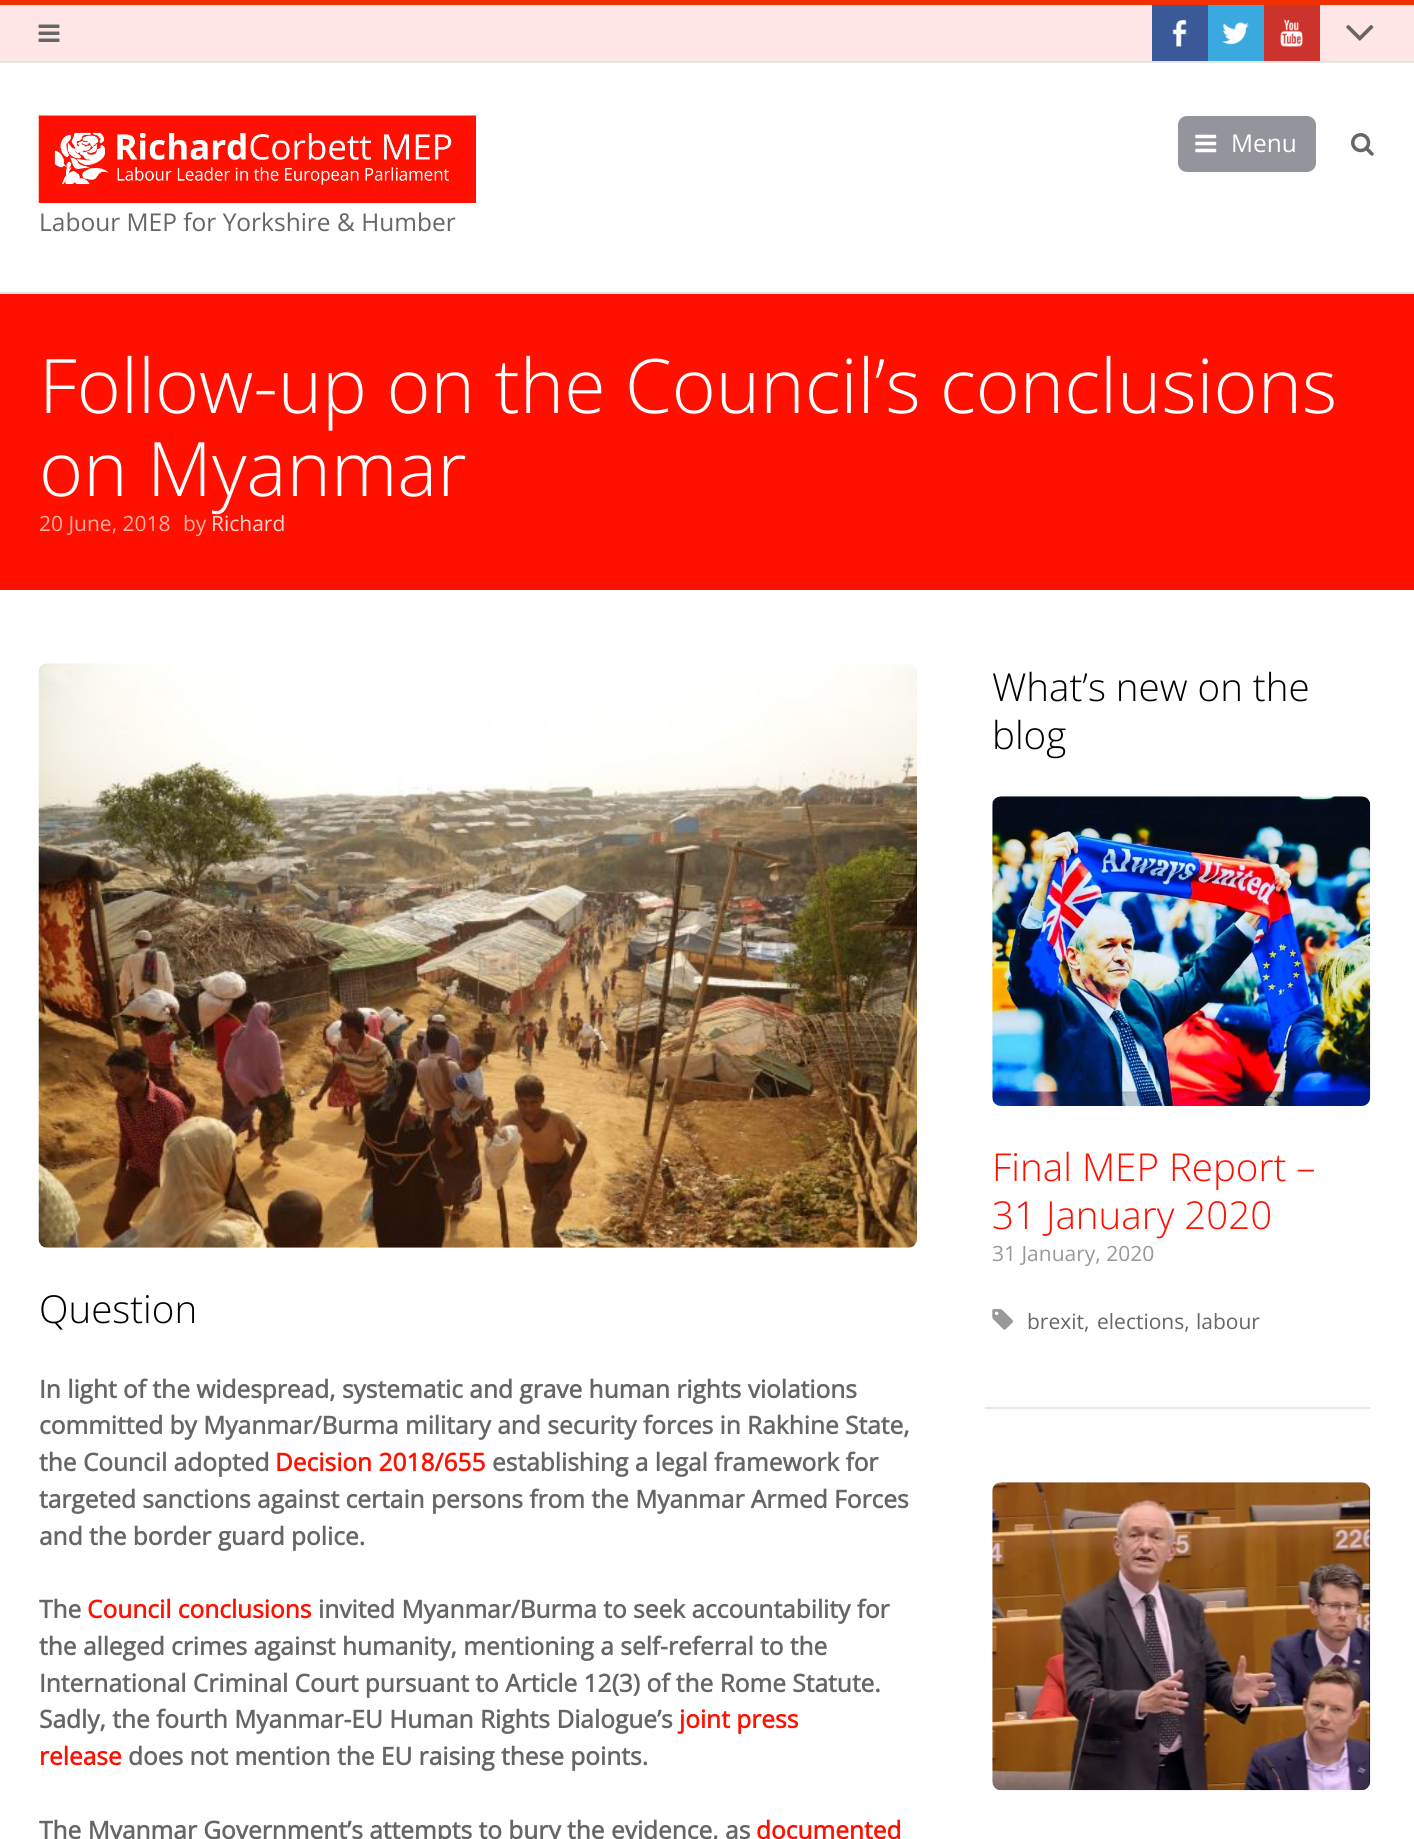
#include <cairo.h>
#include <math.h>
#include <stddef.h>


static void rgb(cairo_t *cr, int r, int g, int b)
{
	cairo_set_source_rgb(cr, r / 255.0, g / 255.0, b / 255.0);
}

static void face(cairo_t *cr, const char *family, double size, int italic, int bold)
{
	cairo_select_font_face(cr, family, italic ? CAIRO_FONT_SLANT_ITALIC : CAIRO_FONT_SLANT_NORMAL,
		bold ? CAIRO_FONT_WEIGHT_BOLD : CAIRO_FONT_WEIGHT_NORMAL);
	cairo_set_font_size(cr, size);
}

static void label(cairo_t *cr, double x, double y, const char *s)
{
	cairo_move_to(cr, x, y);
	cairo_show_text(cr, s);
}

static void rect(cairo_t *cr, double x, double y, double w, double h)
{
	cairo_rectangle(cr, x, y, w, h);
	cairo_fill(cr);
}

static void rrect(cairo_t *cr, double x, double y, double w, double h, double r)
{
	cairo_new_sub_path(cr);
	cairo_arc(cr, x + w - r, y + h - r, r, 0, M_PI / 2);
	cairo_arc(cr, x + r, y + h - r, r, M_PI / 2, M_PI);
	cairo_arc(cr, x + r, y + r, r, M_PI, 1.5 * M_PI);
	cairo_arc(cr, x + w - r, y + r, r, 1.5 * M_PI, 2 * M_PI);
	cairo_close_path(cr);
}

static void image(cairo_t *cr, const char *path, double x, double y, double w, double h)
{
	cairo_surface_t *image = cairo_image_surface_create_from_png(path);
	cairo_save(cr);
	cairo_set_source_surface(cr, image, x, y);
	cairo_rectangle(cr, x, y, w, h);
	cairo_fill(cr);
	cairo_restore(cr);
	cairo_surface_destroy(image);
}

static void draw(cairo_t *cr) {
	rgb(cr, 255, 255, 255);
	cairo_paint(cr);
	rgb(cr, 255, 229, 229);
	rect(cr, 0, 5, 1414, 56);
	rgb(cr, 242, 48, 0);
	rect(cr, 0, 0, 1414, 5);
	rgb(cr, 230, 230, 230);
	rect(cr, 0, 61, 1414, 2);
	image(cr, "image0.png", 38, 24, 22, 18);
	rgb(cr, 59, 89, 152);
	rect(cr, 1152, 5, 56, 56);
	image(cr, "image1.png", 1172, 19, 15, 28);
	rgb(cr, 57, 169, 224);
	rect(cr, 1208, 5, 56, 56);
	image(cr, "image2.png", 1222, 22, 27, 23);
	rgb(cr, 205, 51, 45);
	rect(cr, 1264, 5, 56, 56);
	image(cr, "image3.png", 1280, 19, 23, 28);
	image(cr, "image4.png", 1346, 24, 28, 17);
	rgb(cr, 148, 148, 156);
	rrect(cr, 1179, 117, 136, 54, 8);
	cairo_fill_preserve(cr);
	cairo_stroke(cr);
	image(cr, "image5.png", 1195, 134, 22, 19);
	face(cr, "Open Sans", 24.5, 0, 0);
	rgb(cr, 255, 255, 255);
	label(cr, 1231, 152, "Menu");
	image(cr, "image6.png", 1351, 133, 23, 23);
	image(cr, "image7.png", 38, 115, 438, 88);
	rgb(cr, 102, 102, 102);
	label(cr, 39, 231, "Labour MEP for Yorkshire & Humber");
	rgb(cr, 230, 230, 230);
	rect(cr, 0, 292, 1414, 2);
	rgb(cr, 255, 16, 0);
	rect(cr, 0, 294, 1414, 296);
	face(cr, "Open Sans Light", 75.25, 0, 0);
	rgb(cr, 255, 255, 255);
	label(cr, 39, 413, "Follow-up on the Council’s conclusions");
	label(cr, 39, 496, "on Myanmar");
	face(cr, "Open Sans", 21, 0, 0);
	rgb(cr, 253, 178, 163);
	label(cr, 39, 531, "20 June, 2018");
	label(cr, 183, 531, "by");
	rgb(cr, 254, 218, 212);
	label(cr, 211, 531, "Richard");
	face(cr, "Open Sans Light", 38.5, 0, 0);
	rgb(cr, 0, 0, 0);
	label(cr, 992, 701, "What’s new on the");
	label(cr, 992, 749, "blog");
	image(cr, "image8.png", 992, 796, 379, 310);
	rgb(cr, 255, 16, 0);
	label(cr, 992, 1181, "Final MEP Report –");
	label(cr, 992, 1229, "31 January 2020");
	face(cr, "Open Sans", 21, 0, 0);
	rgb(cr, 153, 153, 153);
	label(cr, 992, 1261, "31 January, 2020");
	image(cr, "image9.png", 992, 1309, 21, 21);
	rgb(cr, 102, 102, 102);
	label(cr, 1027, 1329, "brexit,");
	label(cr, 1097, 1329, "elections,");
	label(cr, 1196, 1329, "labour");
	rgb(cr, 230, 230, 230);
	rect(cr, 985, 1407, 385, 2);
	image(cr, "image10.png", 992, 1482, 379, 309);
	image(cr, "image11.png", 38, 663, 879, 585);
	face(cr, "Open Sans Light", 38.5, 0, 0);
	rgb(cr, 0, 0, 0);
	label(cr, 39, 1323, "Question");
	face(cr, "Open Sans", 24.5, 0, 1);
	rgb(cr, 102, 102, 102);
	label(cr, 39, 1398, "In light of the widespread, systematic and grave human rights violations");
	label(cr, 39, 1434, "committed by Myanmar/Burma military and security forces in Rakhine State,");
	label(cr, 39, 1471, "the Council adopted");
	rgb(cr, 255, 16, 0);
	label(cr, 275, 1471, "Decision 2018/655");
	rgb(cr, 102, 102, 102);
	label(cr, 492, 1471, "establishing a legal framework for");
	label(cr, 39, 1508, "targeted sanctions against certain persons from the Myanmar Armed Forces");
	label(cr, 39, 1545, "and the border guard police.");
	label(cr, 39, 1618, "The");
	rgb(cr, 255, 16, 0);
	label(cr, 87, 1618, "Council conclusions");
	rgb(cr, 102, 102, 102);
	label(cr, 318, 1618, "invited Myanmar/Burma to seek accountability for");
	label(cr, 39, 1655, "the alleged crimes against humanity, mentioning a self-referral to the");
	label(cr, 39, 1692, "International Criminal Court pursuant to Article 12(3) of the Rome Statute.");
	label(cr, 39, 1728, "Sadly, the fourth Myanmar-EU Human Rights Dialogue’s");
	rgb(cr, 255, 16, 0);
	label(cr, 679, 1728, "joint press");
	label(cr, 39, 1765, "release");
	rgb(cr, 102, 102, 102);
	label(cr, 128, 1765, "does not mention the EU raising these points.");
	label(cr, 39, 1839, "The Myanmar Government’s attempts to bury the evidence, as");
	rgb(cr, 255, 16, 0);
	label(cr, 756, 1839, "documented");
}

int main(void) {
	cairo_surface_t *surface = cairo_image_surface_create(CAIRO_FORMAT_RGB24, 1414, 1839);
	cairo_t *cr = cairo_create(surface);
	cairo_font_options_t *options = cairo_font_options_create();
	cairo_font_options_set_hint_metrics(options, CAIRO_HINT_METRICS_OFF);
	cairo_font_options_set_hint_style(options, CAIRO_HINT_STYLE_NONE);
	cairo_set_font_options(cr, options);
	cairo_set_miter_limit(cr, 4);
	draw(cr);
	cairo_surface_write_to_png(surface, "render.png");
	cairo_font_options_destroy(options);
	cairo_destroy(cr);
	cairo_surface_destroy(surface);
	return 0;
}
